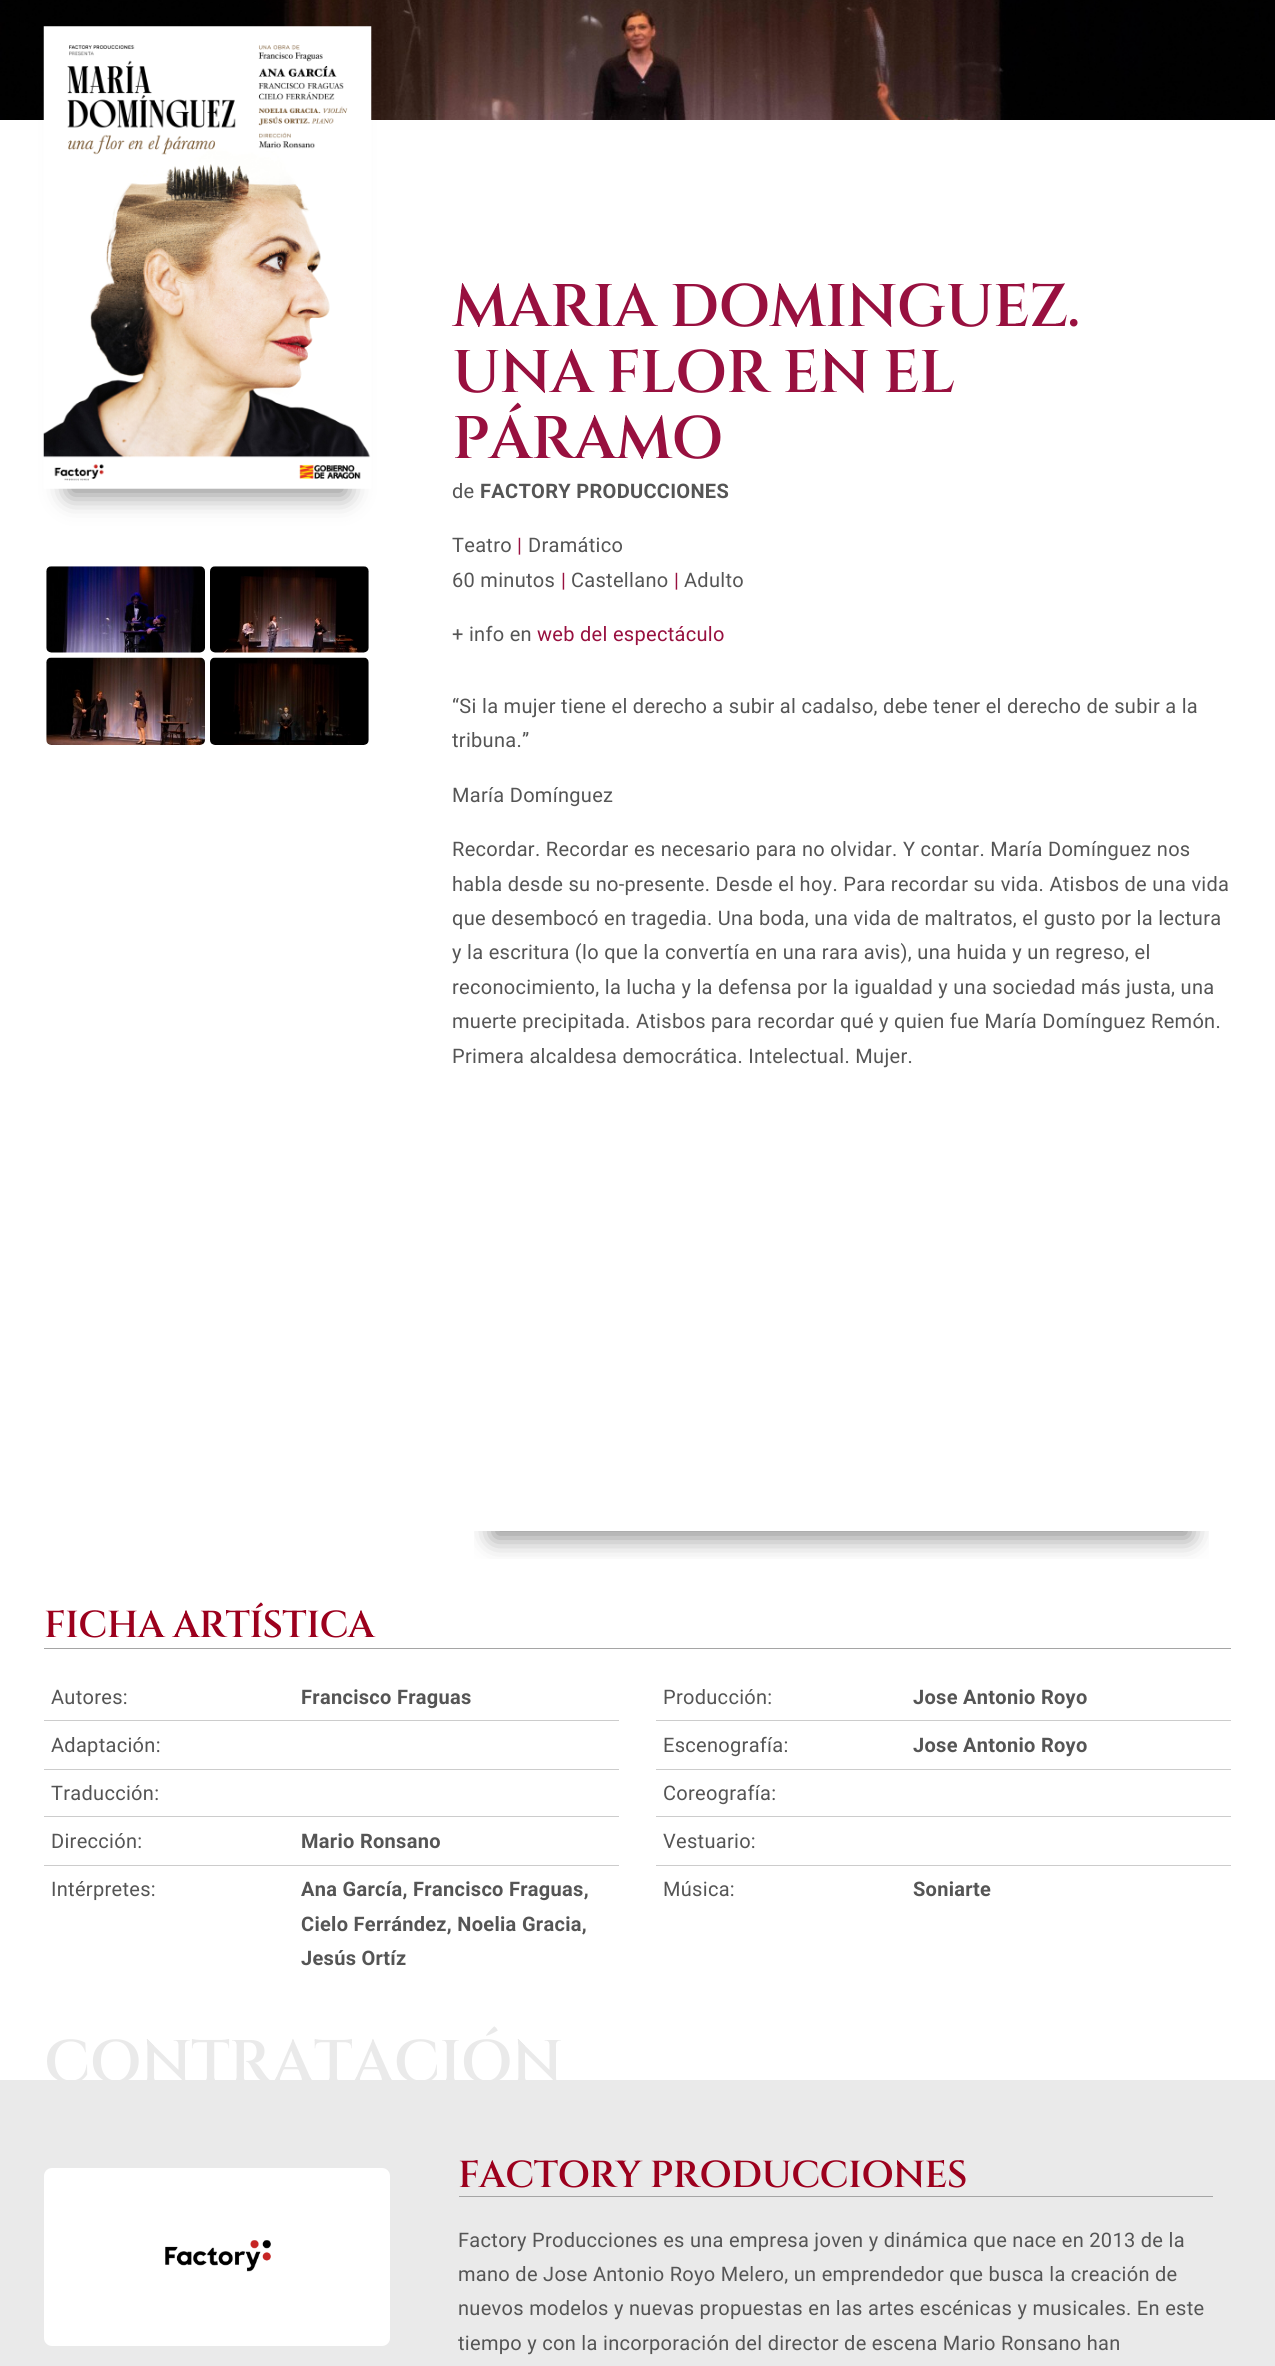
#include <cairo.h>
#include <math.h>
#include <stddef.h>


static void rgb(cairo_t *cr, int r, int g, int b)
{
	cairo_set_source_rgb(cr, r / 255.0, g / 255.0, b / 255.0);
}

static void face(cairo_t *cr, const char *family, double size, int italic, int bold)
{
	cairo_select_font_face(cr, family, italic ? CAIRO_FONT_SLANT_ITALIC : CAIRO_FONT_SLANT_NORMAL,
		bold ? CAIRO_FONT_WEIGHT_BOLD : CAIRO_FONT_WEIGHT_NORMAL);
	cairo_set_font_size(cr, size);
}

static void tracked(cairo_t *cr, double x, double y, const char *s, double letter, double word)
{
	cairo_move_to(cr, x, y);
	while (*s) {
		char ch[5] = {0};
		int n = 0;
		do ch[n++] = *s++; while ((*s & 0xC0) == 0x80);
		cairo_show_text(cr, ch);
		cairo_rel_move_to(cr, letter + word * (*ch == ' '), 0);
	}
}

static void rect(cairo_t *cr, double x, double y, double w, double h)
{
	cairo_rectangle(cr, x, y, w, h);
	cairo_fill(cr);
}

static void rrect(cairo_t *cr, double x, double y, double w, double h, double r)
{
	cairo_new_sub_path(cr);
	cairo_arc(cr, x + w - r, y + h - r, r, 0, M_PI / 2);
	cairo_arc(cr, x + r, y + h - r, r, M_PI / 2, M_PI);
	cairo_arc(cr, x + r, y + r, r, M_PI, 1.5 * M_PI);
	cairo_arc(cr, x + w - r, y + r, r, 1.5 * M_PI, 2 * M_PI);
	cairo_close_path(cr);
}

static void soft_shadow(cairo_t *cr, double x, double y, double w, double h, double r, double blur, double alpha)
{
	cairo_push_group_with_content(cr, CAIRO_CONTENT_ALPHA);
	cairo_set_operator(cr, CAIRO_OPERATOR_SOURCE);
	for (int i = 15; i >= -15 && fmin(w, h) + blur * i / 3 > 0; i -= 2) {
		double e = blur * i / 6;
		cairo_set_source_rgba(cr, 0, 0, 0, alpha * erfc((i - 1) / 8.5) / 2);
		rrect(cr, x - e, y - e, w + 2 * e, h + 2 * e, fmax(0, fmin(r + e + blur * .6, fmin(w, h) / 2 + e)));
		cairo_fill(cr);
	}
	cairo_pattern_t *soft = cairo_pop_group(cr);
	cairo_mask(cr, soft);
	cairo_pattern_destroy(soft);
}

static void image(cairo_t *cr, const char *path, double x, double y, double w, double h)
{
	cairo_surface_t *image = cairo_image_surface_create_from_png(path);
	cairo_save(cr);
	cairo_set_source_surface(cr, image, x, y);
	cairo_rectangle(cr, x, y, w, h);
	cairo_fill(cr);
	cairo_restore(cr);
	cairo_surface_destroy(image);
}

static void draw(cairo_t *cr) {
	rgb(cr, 255, 255, 255);
	cairo_paint(cr);
	image(cr, "image0.png", 0, 0, 1275, 120);
	rgb(cr, 0, 0, 0);
	soft_shadow(cr, 69, 83, 277, 412, 0, 12.5, 0.45);
	image(cr, "image1.png", 43, 26, 329, 463);
	image(cr, "image2.png", 46, 566, 159, 87);
	image(cr, "image3.png", 210, 566, 159, 87);
	image(cr, "image4.png", 46, 657, 159, 88);
	image(cr, "image5.png", 210, 657, 159, 88);
	face(cr, "Cinzel SemiBold", 60, 0, 0);
	rgb(cr, 152, 16, 63);
	tracked(cr, 452, 326, "MARIA DOMINGUEZ.", -0.9, 0);
	tracked(cr, 452, 392, "UNA FLOR EN EL", -0.9, 0);
	tracked(cr, 452, 458, "PÁRAMO", -0.9, 0);
	face(cr, "Roboto", 20, 0, 0);
	rgb(cr, 85, 85, 85);
	tracked(cr, 452, 498, "de", 0.3, 0);
	face(cr, "Roboto", 20, 0, 1);
	tracked(cr, 480, 498, "FACTORY PRODUCCIONES", 0.3, 0);
	face(cr, "Roboto", 20, 0, 0);
	tracked(cr, 452, 552, "Teatro", 0.3, 0);
	rgb(cr, 152, 16, 63);
	tracked(cr, 517, 552, "|", 0.3, 0);
	rgb(cr, 85, 85, 85);
	tracked(cr, 528, 552, "Dramático", 0.3, 0);
	tracked(cr, 452, 587, "60 minutos", 0.3, 0);
	rgb(cr, 152, 16, 63);
	tracked(cr, 561, 587, "|", 0.3, 0);
	rgb(cr, 85, 85, 85);
	tracked(cr, 571, 587, "Castellano", 0.3, 0);
	rgb(cr, 152, 16, 63);
	tracked(cr, 674, 587, "|", 0.3, 0);
	rgb(cr, 85, 85, 85);
	tracked(cr, 684, 587, "Adulto", 0.3, 0);
	tracked(cr, 452, 641, "+ info en", 0.3, 0);
	rgb(cr, 152, 16, 63);
	tracked(cr, 537, 641, "web del espectáculo", 0.3, 0);
	rgb(cr, 85, 85, 85);
	tracked(cr, 452, 713, "“Si la mujer tiene el derecho a subir al cadalso, debe tener el derecho de subir a la", 0.3, 0);
	tracked(cr, 452, 747, "tribuna.”", 0.3, 0);
	tracked(cr, 452, 802, "María Domínguez", 0.3, 0);
	tracked(cr, 452, 856, "Recordar. Recordar es necesario para no olvidar. Y contar. María Domínguez nos", 0.3, 0);
	tracked(cr, 452, 891, "habla desde su no-presente. Desde el hoy. Para recordar su vida. Atisbos de una vida", 0.3, 0);
	tracked(cr, 452, 925, "que desembocó en tragedia. Una boda, una vida de maltratos, el gusto por la lectura", 0.3, 0);
	tracked(cr, 452, 959, "y la escritura (lo que la convertía en una rara avis), una huida y un regreso, el", 0.3, 0);
	tracked(cr, 452, 994, "reconocimiento, la lucha y la defensa por la igualdad y una sociedad más justa, una", 0.3, 0);
	tracked(cr, 452, 1028, "muerte precipitada. Atisbos para recordar qué y quien fue María Domínguez Remón.", 0.3, 0);
	tracked(cr, 452, 1063, "Primera alcaldesa democrática. Intelectual. Mujer.", 0.3, 0);
	cairo_save(cr);
	cairo_rectangle(cr, 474, 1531, 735, 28);
	cairo_clip(cr);
	rgb(cr, 0, 0, 0);
	soft_shadow(cr, 493, 1168, 697, 370, 0, 12.5, 0.45);
	cairo_restore(cr);
	rgb(cr, 165, 165, 165);
	rect(cr, 44, 1648, 1187, 1);
	face(cr, "Cinzel SemiBold", 37.5, 0, 0);
	rgb(cr, 156, 0, 29);
	tracked(cr, 44, 1637, "FICHA ARTÍSTICA", -0.6, 0);
	rgb(cr, 204, 204, 204);
	rect(cr, 44, 1720, 575, 1);
	face(cr, "Roboto", 20, 0, 0);
	rgb(cr, 85, 85, 85);
	tracked(cr, 51, 1704, "Autores:", 0.3, 0);
	face(cr, "Roboto", 20, 0, 1);
	tracked(cr, 301, 1704, "Francisco Fraguas", 0.3, 0);
	rgb(cr, 204, 204, 204);
	rect(cr, 44, 1769, 575, 1);
	face(cr, "Roboto", 20, 0, 0);
	rgb(cr, 85, 85, 85);
	tracked(cr, 51, 1752, "Adaptación:", 0.3, 0);
	rgb(cr, 204, 204, 204);
	rect(cr, 44, 1816, 575, 1);
	rgb(cr, 85, 85, 85);
	tracked(cr, 51, 1800, "Traducción:", 0.3, 0);
	rgb(cr, 204, 204, 204);
	rect(cr, 44, 1865, 575, 1);
	rgb(cr, 85, 85, 85);
	tracked(cr, 51, 1848, "Dirección:", 0.3, 0);
	face(cr, "Roboto", 20, 0, 1);
	tracked(cr, 301, 1848, "Mario Ronsano", 0.3, 0);
	face(cr, "Roboto", 20, 0, 0);
	tracked(cr, 51, 1896, "Intérpretes:", 0.3, 0);
	face(cr, "Roboto", 20, 0, 1);
	tracked(cr, 301, 1896, "Ana García, Francisco Fraguas,", 0.3, 0);
	tracked(cr, 301, 1931, "Cielo Ferrández, Noelia Gracia,", 0.3, 0);
	tracked(cr, 301, 1965, "Jesús Ortíz", 0.3, 0);
	rgb(cr, 204, 204, 204);
	rect(cr, 656, 1720, 575, 1);
	face(cr, "Roboto", 20, 0, 0);
	rgb(cr, 85, 85, 85);
	tracked(cr, 663, 1704, "Producción:", 0.3, 0);
	face(cr, "Roboto", 20, 0, 1);
	tracked(cr, 913, 1704, "Jose Antonio Royo", 0.3, 0);
	rgb(cr, 204, 204, 204);
	rect(cr, 656, 1769, 575, 1);
	face(cr, "Roboto", 20, 0, 0);
	rgb(cr, 85, 85, 85);
	tracked(cr, 663, 1752, "Escenografía:", 0.3, 0);
	face(cr, "Roboto", 20, 0, 1);
	tracked(cr, 913, 1752, "Jose Antonio Royo", 0.3, 0);
	rgb(cr, 204, 204, 204);
	rect(cr, 656, 1816, 575, 1);
	face(cr, "Roboto", 20, 0, 0);
	rgb(cr, 85, 85, 85);
	tracked(cr, 663, 1800, "Coreografía:", 0.3, 0);
	rgb(cr, 204, 204, 204);
	rect(cr, 656, 1865, 575, 1);
	rgb(cr, 85, 85, 85);
	tracked(cr, 663, 1848, "Vestuario:", 0.3, 0);
	tracked(cr, 663, 1896, "Música:", 0.3, 0);
	face(cr, "Roboto", 20, 0, 1);
	tracked(cr, 913, 1896, "Soniarte", 0.3, 0);
	rgb(cr, 234, 234, 234);
	rect(cr, 0, 2080, 1275, 286);
	face(cr, "Cinzel SemiBold", 60, 0, 0);
	tracked(cr, 44, 2082, "CONTRATACIÓN", -0.9, 0);
	rgb(cr, 255, 255, 255);
	rrect(cr, 44, 2168, 346, 178, 8);
	cairo_fill(cr);
	image(cr, "image6.png", 165, 2240, 106, 32);
	rgb(cr, 165, 165, 165);
	rect(cr, 459, 2196, 754, 1);
	face(cr, "Cinzel SemiBold", 37.5, 0, 0);
	rgb(cr, 156, 0, 29);
	tracked(cr, 458, 2187, "FACTORY PRODUCCIONES", -0.6, 0);
	face(cr, "Roboto", 20, 0, 0);
	rgb(cr, 85, 85, 85);
	tracked(cr, 458, 2247, "Factory Producciones es una empresa joven y dinámica que nace en 2013 de la", 0.3, 0);
	tracked(cr, 458, 2281, "mano de Jose Antonio Royo Melero, un emprendedor que busca la creación de", 0.3, 0);
	tracked(cr, 458, 2315, "nuevos modelos y nuevas propuestas en las artes escénicas y musicales. En este", 0.3, 0);
	tracked(cr, 458, 2350, "tiempo y con la incorporación del director de escena Mario Ronsano han", 0.3, 0);
}

int main(void) {
	cairo_surface_t *surface = cairo_image_surface_create(CAIRO_FORMAT_RGB24, 1275, 2366);
	cairo_t *cr = cairo_create(surface);
	cairo_font_options_t *options = cairo_font_options_create();
	cairo_font_options_set_hint_metrics(options, CAIRO_HINT_METRICS_OFF);
	cairo_font_options_set_hint_style(options, CAIRO_HINT_STYLE_NONE);
	cairo_set_font_options(cr, options);
	cairo_set_miter_limit(cr, 4);
	draw(cr);
	cairo_surface_write_to_png(surface, "render.png");
	cairo_font_options_destroy(options);
	cairo_destroy(cr);
	cairo_surface_destroy(surface);
	return 0;
}
